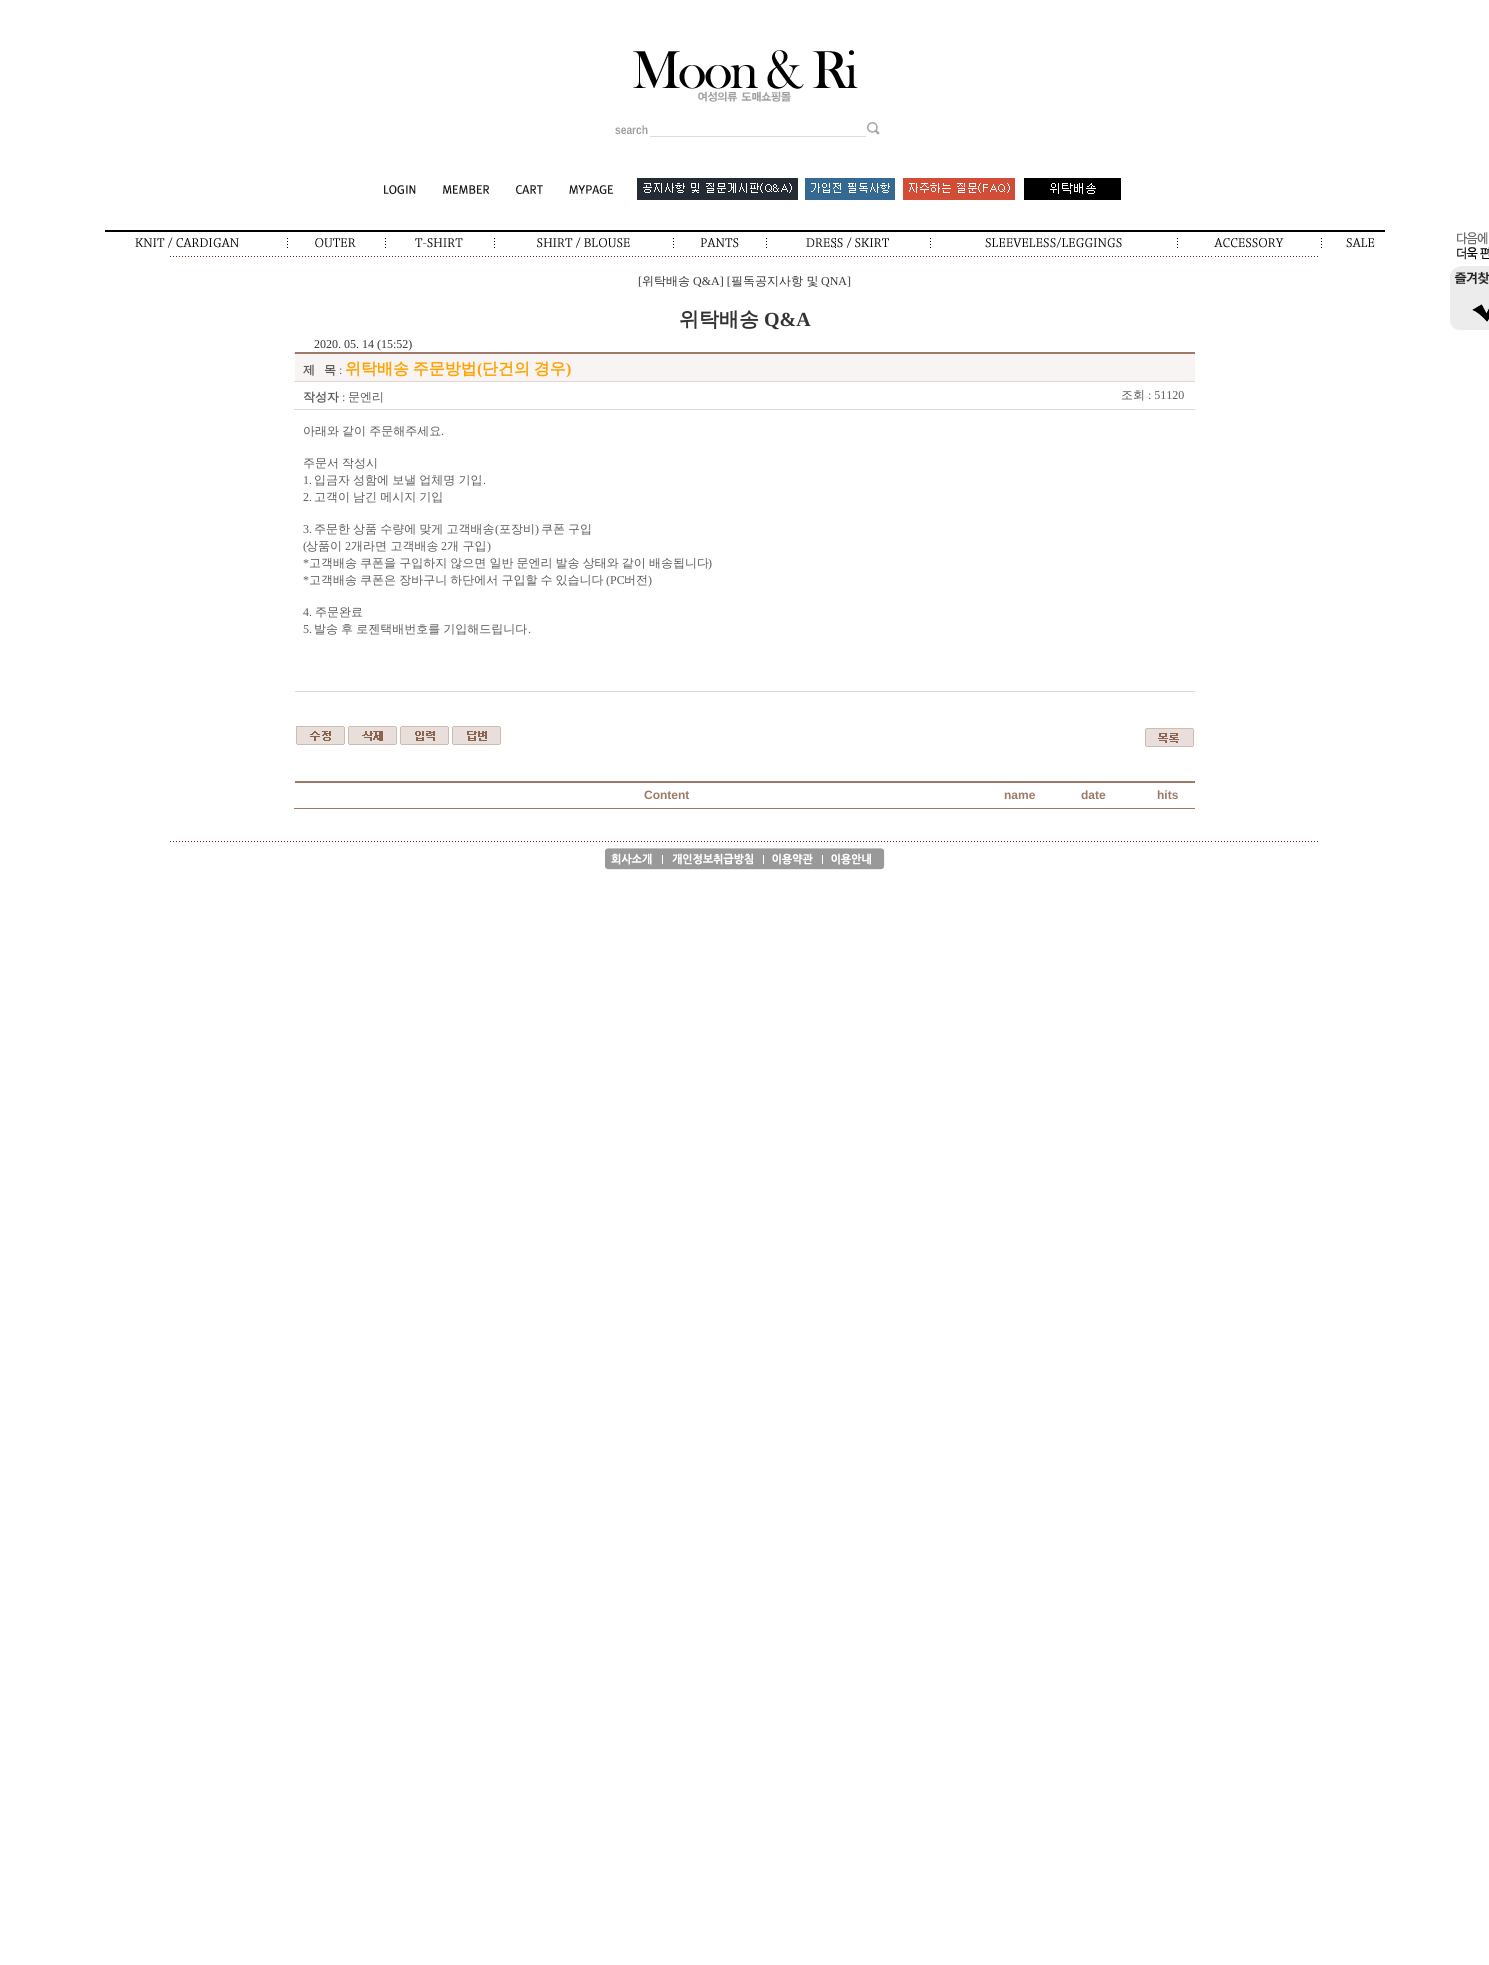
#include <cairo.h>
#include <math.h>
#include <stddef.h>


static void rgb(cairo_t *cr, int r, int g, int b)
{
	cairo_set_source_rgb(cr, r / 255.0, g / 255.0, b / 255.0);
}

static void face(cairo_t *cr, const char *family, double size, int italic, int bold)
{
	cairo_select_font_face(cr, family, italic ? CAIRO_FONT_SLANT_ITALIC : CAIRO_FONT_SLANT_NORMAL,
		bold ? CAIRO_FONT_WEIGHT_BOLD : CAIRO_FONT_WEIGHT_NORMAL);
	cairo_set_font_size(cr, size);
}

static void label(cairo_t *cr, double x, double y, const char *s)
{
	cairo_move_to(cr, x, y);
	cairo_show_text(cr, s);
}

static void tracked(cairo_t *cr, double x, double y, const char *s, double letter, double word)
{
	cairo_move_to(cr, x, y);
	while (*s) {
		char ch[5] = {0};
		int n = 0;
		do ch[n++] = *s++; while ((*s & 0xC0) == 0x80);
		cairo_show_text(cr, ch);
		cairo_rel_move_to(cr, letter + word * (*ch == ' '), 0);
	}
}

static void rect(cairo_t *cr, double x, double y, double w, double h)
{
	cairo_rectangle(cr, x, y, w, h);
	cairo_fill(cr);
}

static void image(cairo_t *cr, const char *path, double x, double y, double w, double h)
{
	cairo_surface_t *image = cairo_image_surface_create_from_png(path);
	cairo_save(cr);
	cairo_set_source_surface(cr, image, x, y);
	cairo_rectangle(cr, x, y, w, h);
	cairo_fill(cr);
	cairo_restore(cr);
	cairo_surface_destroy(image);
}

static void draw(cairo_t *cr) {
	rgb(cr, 255, 255, 255);
	cairo_paint(cr);
	image(cr, "image0.png", 633, 50, 225, 39);
	image(cr, "image1.png", 698, 91, 93, 11);
	image(cr, "image2.png", 615, 125, 33, 9);
	image(cr, "image3.png", 867, 122, 13, 13);
	rgb(cr, 221, 221, 221);
	rect(cr, 650, 136, 216, 1);
	image(cr, "image4.png", 384, 185, 32, 9);
	image(cr, "image5.png", 443, 185, 46, 9);
	image(cr, "image6.png", 516, 185, 27, 9);
	image(cr, "image7.png", 569, 185, 44, 9);
	image(cr, "image8.png", 637, 178, 161, 22);
	image(cr, "image9.png", 805, 178, 90, 22);
	image(cr, "image10.png", 903, 178, 112, 22);
	image(cr, "image11.png", 1024, 178, 97, 22);
	rgb(cr, 0, 0, 0);
	rect(cr, 105, 230, 1280, 2);
	image(cr, "image12.png", 135, 237, 104, 11);
	image(cr, "image13.png", 287, 238, 1, 10);
	image(cr, "image14.png", 315, 238, 41, 10);
	image(cr, "image13.png", 385, 238, 1, 10);
	image(cr, "image15.png", 415, 238, 48, 10);
	image(cr, "image13.png", 494, 238, 1, 10);
	image(cr, "image16.png", 537, 237, 93, 11);
	image(cr, "image13.png", 673, 238, 1, 10);
	image(cr, "image17.png", 700, 238, 39, 10);
	image(cr, "image13.png", 766, 238, 1, 10);
	image(cr, "image18.png", 806, 237, 83, 11);
	image(cr, "image13.png", 930, 238, 1, 10);
	image(cr, "image19.png", 985, 237, 137, 11);
	image(cr, "image13.png", 1177, 238, 1, 10);
	image(cr, "image20.png", 1214, 238, 70, 10);
	image(cr, "image13.png", 1321, 238, 1, 10);
	image(cr, "image21.png", 1346, 238, 29, 10);
	image(cr, "image22.png", 170, 256, 1148, 1);
	face(cr, "Liberation Serif", 12, 0, 0);
	rgb(cr, 51, 51, 51);
	label(cr, 638, 285, "[");
	face(cr, "WenQuanYi Zen Hei Medium", 12, 0, 0);
	label(cr, 642, 285, "위탁배송");
	face(cr, "Liberation Serif", 12, 0, 0);
	label(cr, 693, 285, "Q&A] [");
	face(cr, "WenQuanYi Zen Hei Medium", 12, 0, 0);
	label(cr, 731, 285, "필독공지사항 및");
	face(cr, "Liberation Serif", 12, 0, 0);
	label(cr, 821, 285, "QNA]");
	face(cr, "WenQuanYi Zen Hei", 20, 0, 1);
	label(cr, 679, 326, "위탁배송");
	face(cr, "Liberation Serif", 20, 0, 1);
	label(cr, 764, 326, "Q&A");
	face(cr, "Liberation Serif", 12, 0, 0);
	label(cr, 314, 348, "2020. 05. 14 (15:52)");
	rgb(cr, 226, 215, 209);
	rect(cr, 295, 691, 900, 1);
	rgb(cr, 156, 122, 103);
	rect(cr, 295, 352, 900, 2);
	rgb(cr, 248, 244, 243);
	rect(cr, 295, 354, 900, 27);
	rgb(cr, 226, 215, 209);
	rect(cr, 294, 353, 1, 1);
	face(cr, "WenQuanYi Zen Hei", 12, 0, 1);
	rgb(cr, 91, 91, 91);
	label(cr, 303, 374, "제");
	label(cr, 324, 374, "목");
	face(cr, "Liberation Serif", 12, 0, 0);
	label(cr, 339, 374, ":");
	face(cr, "WenQuanYi Zen Hei", 16, 0, 1);
	rgb(cr, 255, 163, 0);
	tracked(cr, 345, 374, "위탁배송 주문방법", 0, -1);
	face(cr, "Liberation Serif", 16, 0, 1);
	label(cr, 477, 374, "(");
	face(cr, "WenQuanYi Zen Hei", 16, 0, 1);
	tracked(cr, 482, 374, "단건의 경우", 0, -1);
	face(cr, "Liberation Serif", 16, 0, 1);
	label(cr, 566, 374, ")");
	face(cr, "WenQuanYi Zen Hei", 12, 0, 1);
	rgb(cr, 91, 91, 91);
	label(cr, 303, 401, "작성자");
	face(cr, "Liberation Serif", 12, 0, 0);
	label(cr, 342, 401, ":");
	face(cr, "WenQuanYi Zen Hei Medium", 12, 0, 0);
	label(cr, 348, 401, "문엔리");
	rgb(cr, 226, 215, 209);
	rect(cr, 294, 381, 901, 1);
	rgb(cr, 91, 91, 91);
	label(cr, 1121, 399, "조회");
	face(cr, "Liberation Serif", 12, 0, 0);
	label(cr, 1148, 399, ": 51120");
	rgb(cr, 226, 215, 209);
	rect(cr, 294, 409, 901, 1);
	face(cr, "WenQuanYi Zen Hei Medium", 12, 0, 0);
	rgb(cr, 91, 91, 91);
	tracked(cr, 303, 435, "아래와 같이 주문해주세요", 0, -0.5);
	face(cr, "Liberation Serif", 12, 0, 0);
	label(cr, 441, 435, ".");
	face(cr, "WenQuanYi Zen Hei Medium", 12, 0, 0);
	tracked(cr, 303, 467, "주문서 작성시", 0, -0.5);
	face(cr, "Liberation Serif", 12, 0, 0);
	label(cr, 303, 484, "1.");
	face(cr, "WenQuanYi Zen Hei Medium", 12, 0, 0);
	tracked(cr, 314, 484, "입금자 성함에 보낼 업체명 기입", 0, -0.5);
	face(cr, "Liberation Serif", 12, 0, 0);
	label(cr, 483, 484, ".");
	label(cr, 303, 501, "2.");
	face(cr, "WenQuanYi Zen Hei Medium", 12, 0, 0);
	tracked(cr, 314, 501, "고객이 남긴 메시지 기입", 0, -0.5);
	face(cr, "Liberation Serif", 12, 0, 0);
	label(cr, 303, 533, "3.");
	face(cr, "WenQuanYi Zen Hei Medium", 12, 0, 0);
	tracked(cr, 314, 533, "주문한 상품 수량에 맞게 고객배송", 0, -0.5);
	face(cr, "Liberation Serif", 12, 0, 0);
	label(cr, 495, 533, "(");
	face(cr, "WenQuanYi Zen Hei Medium", 12, 0, 0);
	label(cr, 499, 533, "포장비");
	face(cr, "Liberation Serif", 12, 0, 0);
	label(cr, 535, 533, ")");
	face(cr, "WenQuanYi Zen Hei Medium", 12, 0, 0);
	tracked(cr, 541, 533, "쿠폰 구입", 0, -0.5);
	face(cr, "Liberation Serif", 12, 0, 0);
	label(cr, 303, 550, "(");
	face(cr, "WenQuanYi Zen Hei Medium", 12, 0, 0);
	label(cr, 306, 550, "상품이");
	face(cr, "Liberation Serif", 12, 0, 0);
	label(cr, 345, 550, "2");
	face(cr, "WenQuanYi Zen Hei Medium", 12, 0, 0);
	label(cr, 351, 550, "개라면 고객배송");
	face(cr, "Liberation Serif", 12, 0, 0);
	label(cr, 441, 550, "2");
	face(cr, "WenQuanYi Zen Hei Medium", 12, 0, 0);
	label(cr, 447, 550, "개 구입");
	face(cr, "Liberation Serif", 12, 0, 0);
	label(cr, 487, 550, ")");
	label(cr, 303, 567, "*");
	face(cr, "WenQuanYi Zen Hei Medium", 12, 0, 0);
	tracked(cr, 309, 567, "고객배송 쿠폰을 구입하지 않으면 일반 문엔리 발송 상태와 같이 배송됩니다", 0, -0.5);
	face(cr, "Liberation Serif", 12, 0, 0);
	label(cr, 708, 567, ")");
	label(cr, 303, 584, "*");
	face(cr, "WenQuanYi Zen Hei Medium", 12, 0, 0);
	tracked(cr, 309, 584, "고객배송 쿠폰은 장바구니 하단에서 구입할 수 있습니다", 0, -0.5);
	face(cr, "Liberation Serif", 12, 0, 0);
	label(cr, 606, 584, "(PC");
	face(cr, "WenQuanYi Zen Hei Medium", 12, 0, 0);
	label(cr, 624, 584, "버전");
	face(cr, "Liberation Serif", 12, 0, 0);
	label(cr, 648, 584, ")");
	label(cr, 303, 616, "4.");
	face(cr, "WenQuanYi Zen Hei Medium", 12, 0, 0);
	label(cr, 315, 616, "주문완료");
	face(cr, "Liberation Serif", 12, 0, 0);
	label(cr, 303, 633, "5.");
	face(cr, "WenQuanYi Zen Hei Medium", 12, 0, 0);
	tracked(cr, 314, 633, "발송 후 로젠택배번호를 기입해드립니다", 0, -0.5);
	face(cr, "Liberation Serif", 12, 0, 0);
	label(cr, 528, 633, ".");
	image(cr, "image23.png", 296, 726, 49, 19);
	image(cr, "image24.png", 348, 726, 49, 19);
	image(cr, "image25.png", 400, 726, 49, 19);
	image(cr, "image26.png", 452, 726, 49, 19);
	image(cr, "image27.png", 1145, 728, 49, 19);
	rgb(cr, 156, 122, 103);
	rect(cr, 295, 781, 900, 2);
	face(cr, "Liberation Sans", 12, 0, 1);
	label(cr, 644, 799, "Content");
	label(cr, 1004, 799, "name");
	label(cr, 1081, 799, "date");
	rect(cr, 294, 808, 901, 1);
	label(cr, 1157, 799, "hits");
	image(cr, "image22.png", 170, 841, 1148, 1);
	image(cr, "image28.png", 605, 848, 61, 22);
	image(cr, "image29.png", 666, 848, 101, 22);
	image(cr, "image30.png", 767, 848, 58, 22);
	image(cr, "image31.png", 825, 848, 60, 22);
	image(cr, "image32.png", 1450, 232, 39, 98);
}

int main(void) {
	cairo_surface_t *surface = cairo_image_surface_create(CAIRO_FORMAT_RGB24, 1489, 1965);
	cairo_t *cr = cairo_create(surface);
	cairo_font_options_t *options = cairo_font_options_create();
	cairo_font_options_set_hint_metrics(options, CAIRO_HINT_METRICS_OFF);
	cairo_font_options_set_hint_style(options, CAIRO_HINT_STYLE_NONE);
	cairo_set_font_options(cr, options);
	cairo_set_miter_limit(cr, 4);
	draw(cr);
	cairo_surface_write_to_png(surface, "render.png");
	cairo_font_options_destroy(options);
	cairo_destroy(cr);
	cairo_surface_destroy(surface);
	return 0;
}
